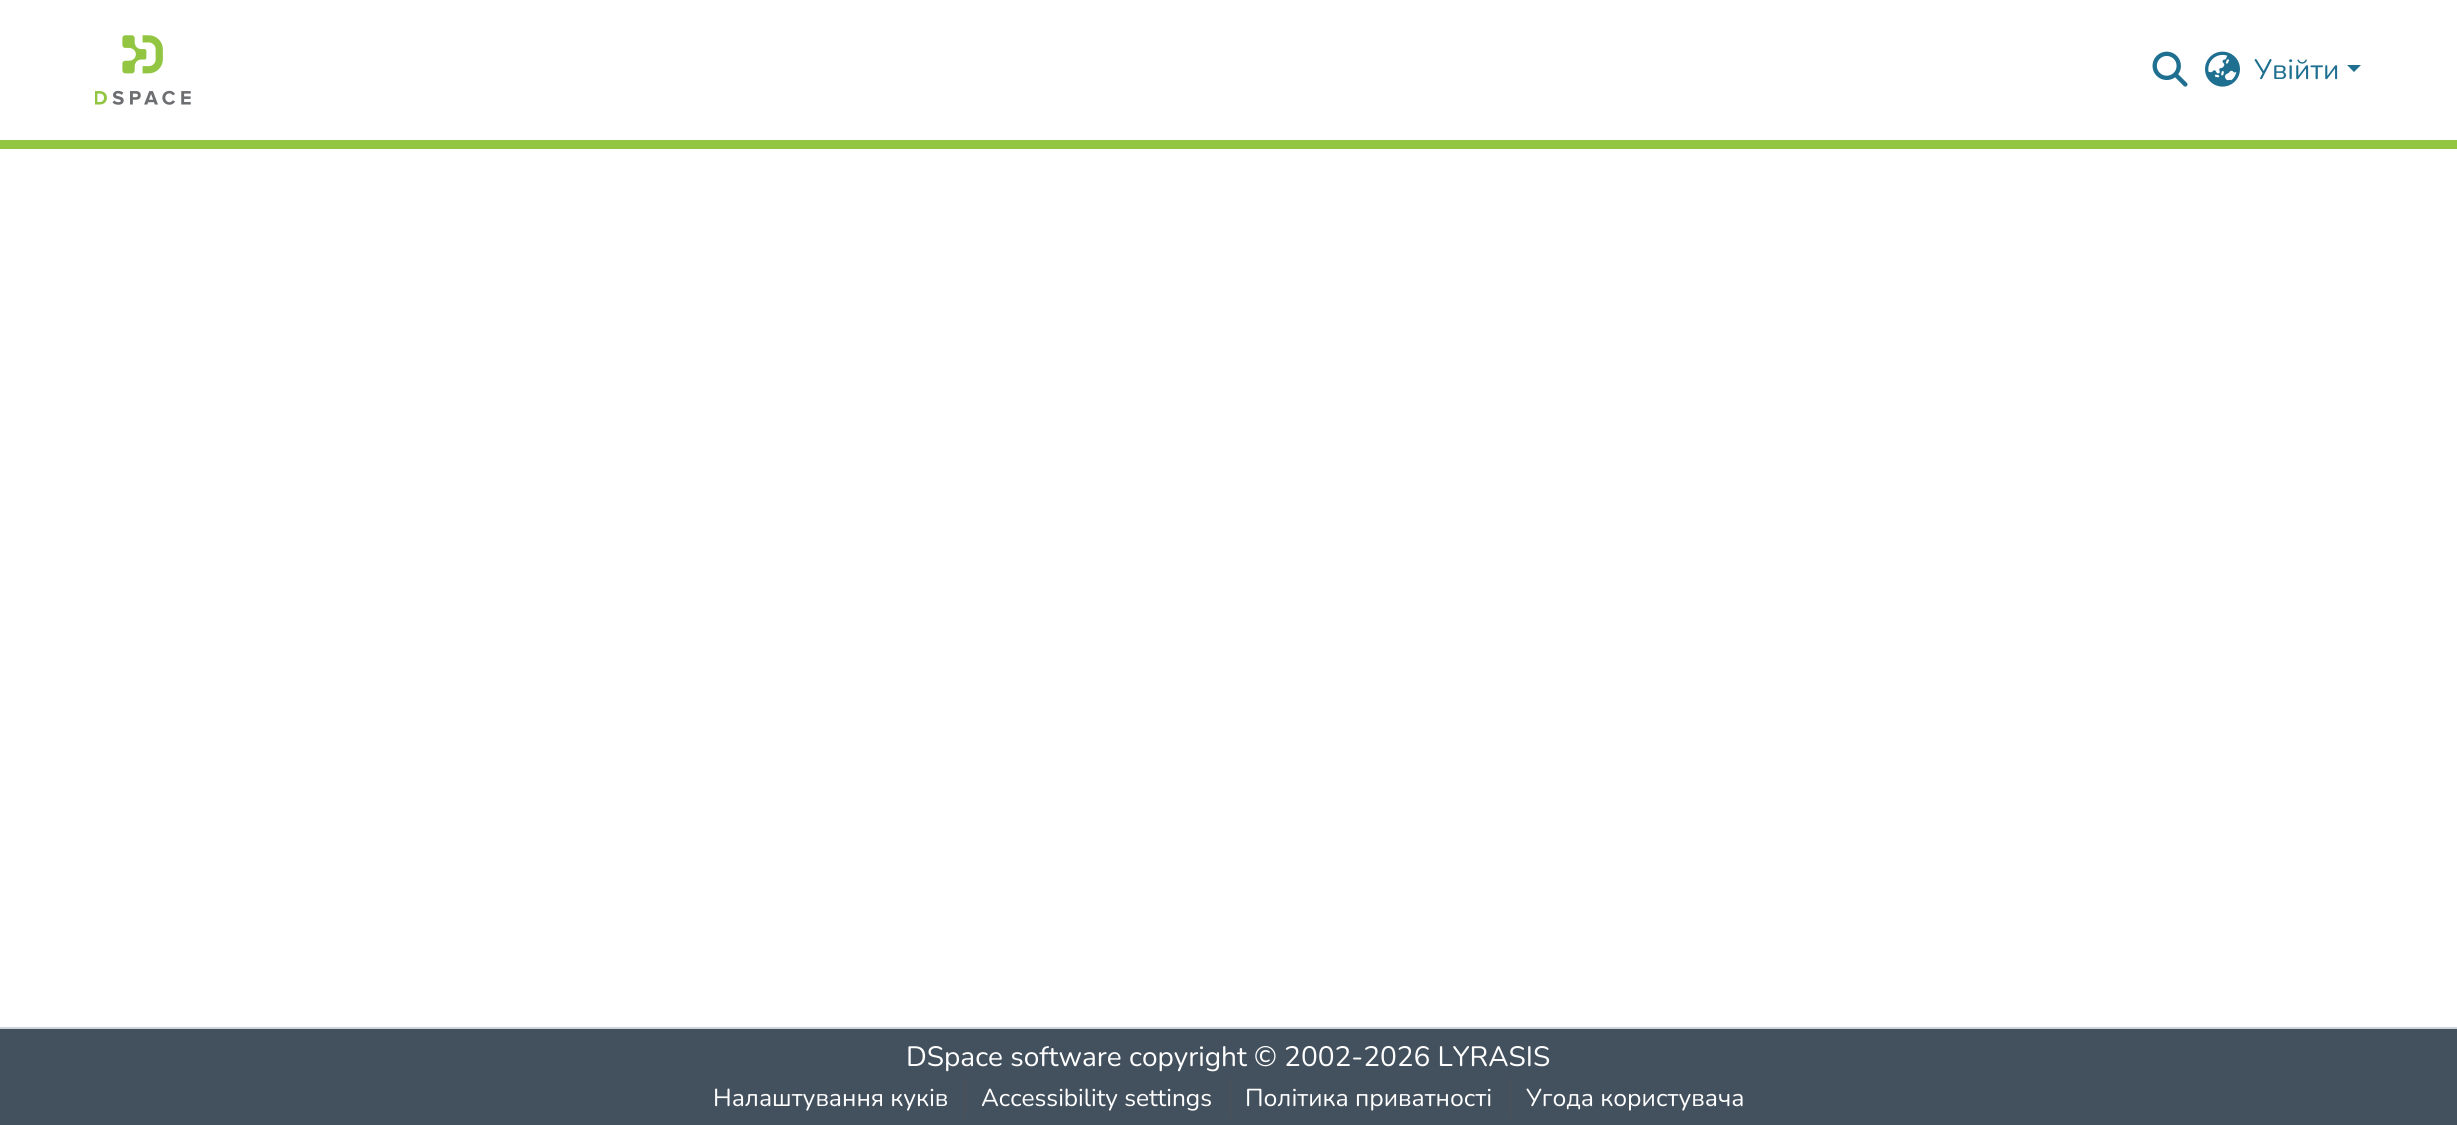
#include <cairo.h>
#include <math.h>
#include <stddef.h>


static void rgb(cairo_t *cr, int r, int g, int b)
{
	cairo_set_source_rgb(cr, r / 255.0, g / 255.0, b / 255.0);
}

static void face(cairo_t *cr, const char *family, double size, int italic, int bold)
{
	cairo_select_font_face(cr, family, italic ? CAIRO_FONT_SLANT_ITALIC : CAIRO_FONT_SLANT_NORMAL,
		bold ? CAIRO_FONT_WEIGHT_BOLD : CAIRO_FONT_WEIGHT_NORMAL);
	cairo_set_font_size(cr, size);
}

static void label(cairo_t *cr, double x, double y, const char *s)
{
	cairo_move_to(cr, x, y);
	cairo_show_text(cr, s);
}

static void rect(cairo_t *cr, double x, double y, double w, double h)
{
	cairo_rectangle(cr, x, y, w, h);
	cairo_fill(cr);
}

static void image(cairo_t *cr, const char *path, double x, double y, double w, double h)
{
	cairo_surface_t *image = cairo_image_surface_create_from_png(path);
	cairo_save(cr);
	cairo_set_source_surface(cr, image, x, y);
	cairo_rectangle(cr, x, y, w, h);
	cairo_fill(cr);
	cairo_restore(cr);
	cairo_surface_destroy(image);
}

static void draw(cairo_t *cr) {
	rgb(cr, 255, 255, 255);
	cairo_paint(cr);
	rgb(cr, 146, 198, 66);
	rect(cr, 0, 140, 2457, 9);
	image(cr, "image0.png", 95, 35, 96, 70);
	image(cr, "image1.png", 2152, 51, 36, 36);
	image(cr, "image2.png", 2205, 51, 35, 36);
	face(cr, "Nunito", 28, 0, 0);
	rgb(cr, 30, 111, 144);
	label(cr, 2254, 79, "Увійти");
	cairo_new_path(cr);
	cairo_move_to(cr, 2347, 65);
	cairo_line_to(cr, 2361, 65);
	cairo_line_to(cr, 2354, 72);
	cairo_close_path(cr);
	cairo_fill(cr);
	rgb(cr, 67, 81, 95);
	rect(cr, 0, 1029, 2457, 96);
	rgb(cr, 206, 212, 218);
	rect(cr, 0, 1027, 2457, 2);
	rgb(cr, 255, 255, 255);
	label(cr, 906, 1066, "DSpace software copyright © 2002-2026 LYRASIS");
	face(cr, "Nunito", 24.5, 0, 0);
	label(cr, 713, 1106, "Налаштування куків");
	rgb(cr, 73, 80, 87);
	rect(cr, 964, 1078, 2, 40);
	rgb(cr, 255, 255, 255);
	label(cr, 981, 1106, "Accessibility settings");
	rgb(cr, 73, 80, 87);
	rect(cr, 1229, 1078, 2, 40);
	rgb(cr, 255, 255, 255);
	label(cr, 1245, 1106, "Політика приватності");
	rgb(cr, 73, 80, 87);
	rect(cr, 1509, 1078, 2, 40);
	rgb(cr, 255, 255, 255);
	label(cr, 1526, 1106, "Угода користувача");
}

int main(void) {
	cairo_surface_t *surface = cairo_image_surface_create(CAIRO_FORMAT_RGB24, 2457, 1125);
	cairo_t *cr = cairo_create(surface);
	cairo_font_options_t *options = cairo_font_options_create();
	cairo_font_options_set_hint_metrics(options, CAIRO_HINT_METRICS_OFF);
	cairo_font_options_set_hint_style(options, CAIRO_HINT_STYLE_NONE);
	cairo_set_font_options(cr, options);
	cairo_set_miter_limit(cr, 4);
	draw(cr);
	cairo_surface_write_to_png(surface, "render.png");
	cairo_font_options_destroy(options);
	cairo_destroy(cr);
	cairo_surface_destroy(surface);
	return 0;
}
